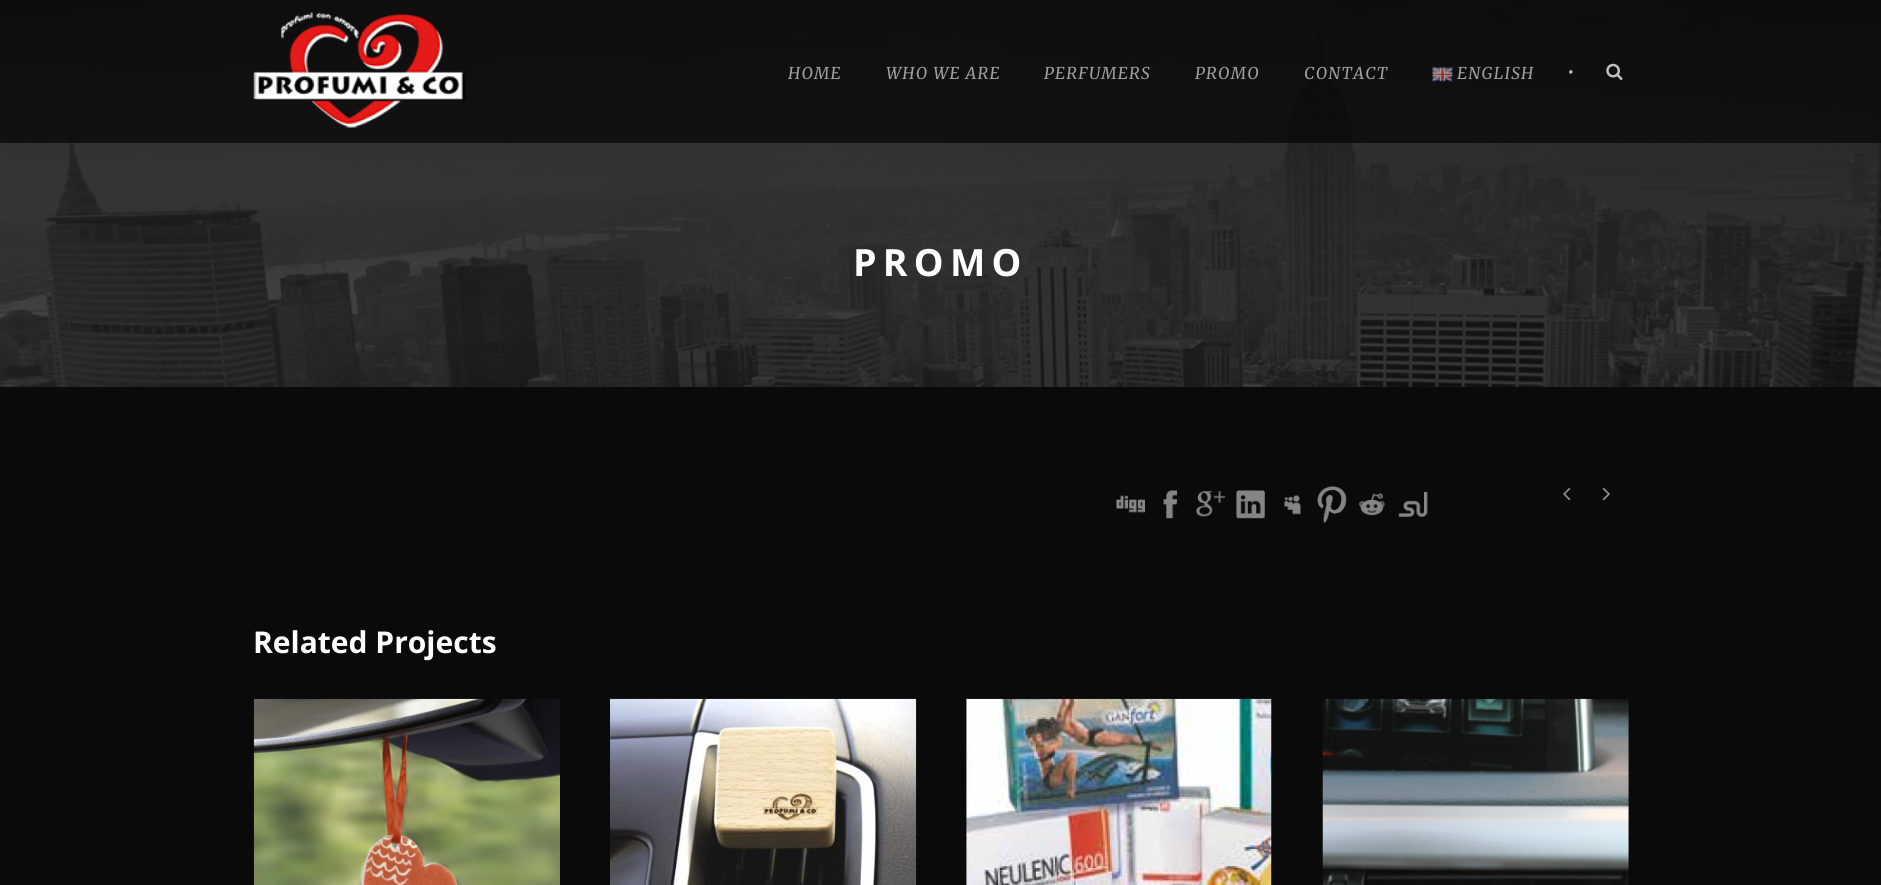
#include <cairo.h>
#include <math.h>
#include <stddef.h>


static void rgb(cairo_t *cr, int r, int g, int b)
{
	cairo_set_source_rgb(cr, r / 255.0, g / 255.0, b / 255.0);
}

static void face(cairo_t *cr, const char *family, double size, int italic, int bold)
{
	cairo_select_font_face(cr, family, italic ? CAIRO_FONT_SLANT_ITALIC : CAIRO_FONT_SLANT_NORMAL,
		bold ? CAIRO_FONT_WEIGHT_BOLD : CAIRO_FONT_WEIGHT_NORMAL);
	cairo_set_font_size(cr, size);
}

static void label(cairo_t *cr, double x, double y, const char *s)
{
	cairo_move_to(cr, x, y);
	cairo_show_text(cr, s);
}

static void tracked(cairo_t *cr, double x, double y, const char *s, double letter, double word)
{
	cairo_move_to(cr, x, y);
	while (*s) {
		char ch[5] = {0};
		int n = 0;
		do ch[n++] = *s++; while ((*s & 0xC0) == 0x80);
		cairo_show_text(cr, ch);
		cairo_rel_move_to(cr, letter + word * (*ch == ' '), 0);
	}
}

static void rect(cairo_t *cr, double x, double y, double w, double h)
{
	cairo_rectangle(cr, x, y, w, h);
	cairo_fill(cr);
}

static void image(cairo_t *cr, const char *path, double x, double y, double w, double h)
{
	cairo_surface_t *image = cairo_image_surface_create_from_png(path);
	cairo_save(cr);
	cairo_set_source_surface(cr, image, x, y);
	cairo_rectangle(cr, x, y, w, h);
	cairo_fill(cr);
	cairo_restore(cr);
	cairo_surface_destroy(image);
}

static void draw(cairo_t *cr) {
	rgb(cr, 10, 10, 10);
	cairo_paint(cr);
	image(cr, "image3.png", 0, 0, 1881, 387);
	cairo_set_source_rgba(cr, 0.039, 0.039, 0.039, 0.8);
	rect(cr, 0, 0, 1881, 143);
	image(cr, "image0.png", 253, 12, 213, 116);
	face(cr, "Merriweather", 16.25, 1, 0);
	rgb(cr, 160, 160, 160);
	tracked(cr, 788, 79, "HOME", 1.25, 0);
	tracked(cr, 886, 79, "WHO WE ARE", 1.25, 0);
	tracked(cr, 1044, 79, "PERFUMERS", 1.25, 0);
	tracked(cr, 1195, 79, "PROMO", 1.25, 0);
	tracked(cr, 1304, 79, "CONTACT", 1.25, 0);
	image(cr, "image1.png", 1432, 67, 21, 15);
	tracked(cr, 1457, 79, "ENGLISH", 1.25, 0);
	face(cr, "Merriweather", 18, 0, 0);
	rgb(cr, 193, 193, 193);
	label(cr, 1567, 78, "•");
	image(cr, "image2.png", 1606, 63, 17, 17);
	face(cr, "Open Sans", 37.5, 0, 1);
	rgb(cr, 255, 255, 255);
	tracked(cr, 853, 276, "PROMO", 6.25, 0);
	image(cr, "image4.png", 1116, 495, 29, 18);
	image(cr, "image5.png", 1163, 490, 14, 29);
	image(cr, "image6.png", 1196, 491, 29, 26);
	image(cr, "image7.png", 1236, 490, 29, 29);
	image(cr, "image8.png", 1283, 495, 18, 20);
	image(cr, "image9.png", 1317, 486, 30, 37);
	image(cr, "image10.png", 1359, 493, 26, 23);
	image(cr, "image11.png", 1398, 491, 30, 26);
	image(cr, "image12.png", 1563, 487, 8, 14);
	image(cr, "image13.png", 1602, 487, 8, 14);
	face(cr, "Open Sans", 30, 0, 1);
	label(cr, 253, 653, "Related Projects");
	image(cr, "image14.png", 253, 698, 307, 187);
	image(cr, "image15.png", 610, 698, 307, 187);
	image(cr, "image16.png", 966, 698, 306, 187);
	image(cr, "image17.png", 1322, 698, 307, 187);
}

int main(void) {
	cairo_surface_t *surface = cairo_image_surface_create(CAIRO_FORMAT_RGB24, 1881, 885);
	cairo_t *cr = cairo_create(surface);
	cairo_font_options_t *options = cairo_font_options_create();
	cairo_font_options_set_hint_metrics(options, CAIRO_HINT_METRICS_OFF);
	cairo_font_options_set_hint_style(options, CAIRO_HINT_STYLE_NONE);
	cairo_set_font_options(cr, options);
	cairo_set_miter_limit(cr, 4);
	draw(cr);
	cairo_surface_write_to_png(surface, "render.png");
	cairo_font_options_destroy(options);
	cairo_destroy(cr);
	cairo_surface_destroy(surface);
	return 0;
}
